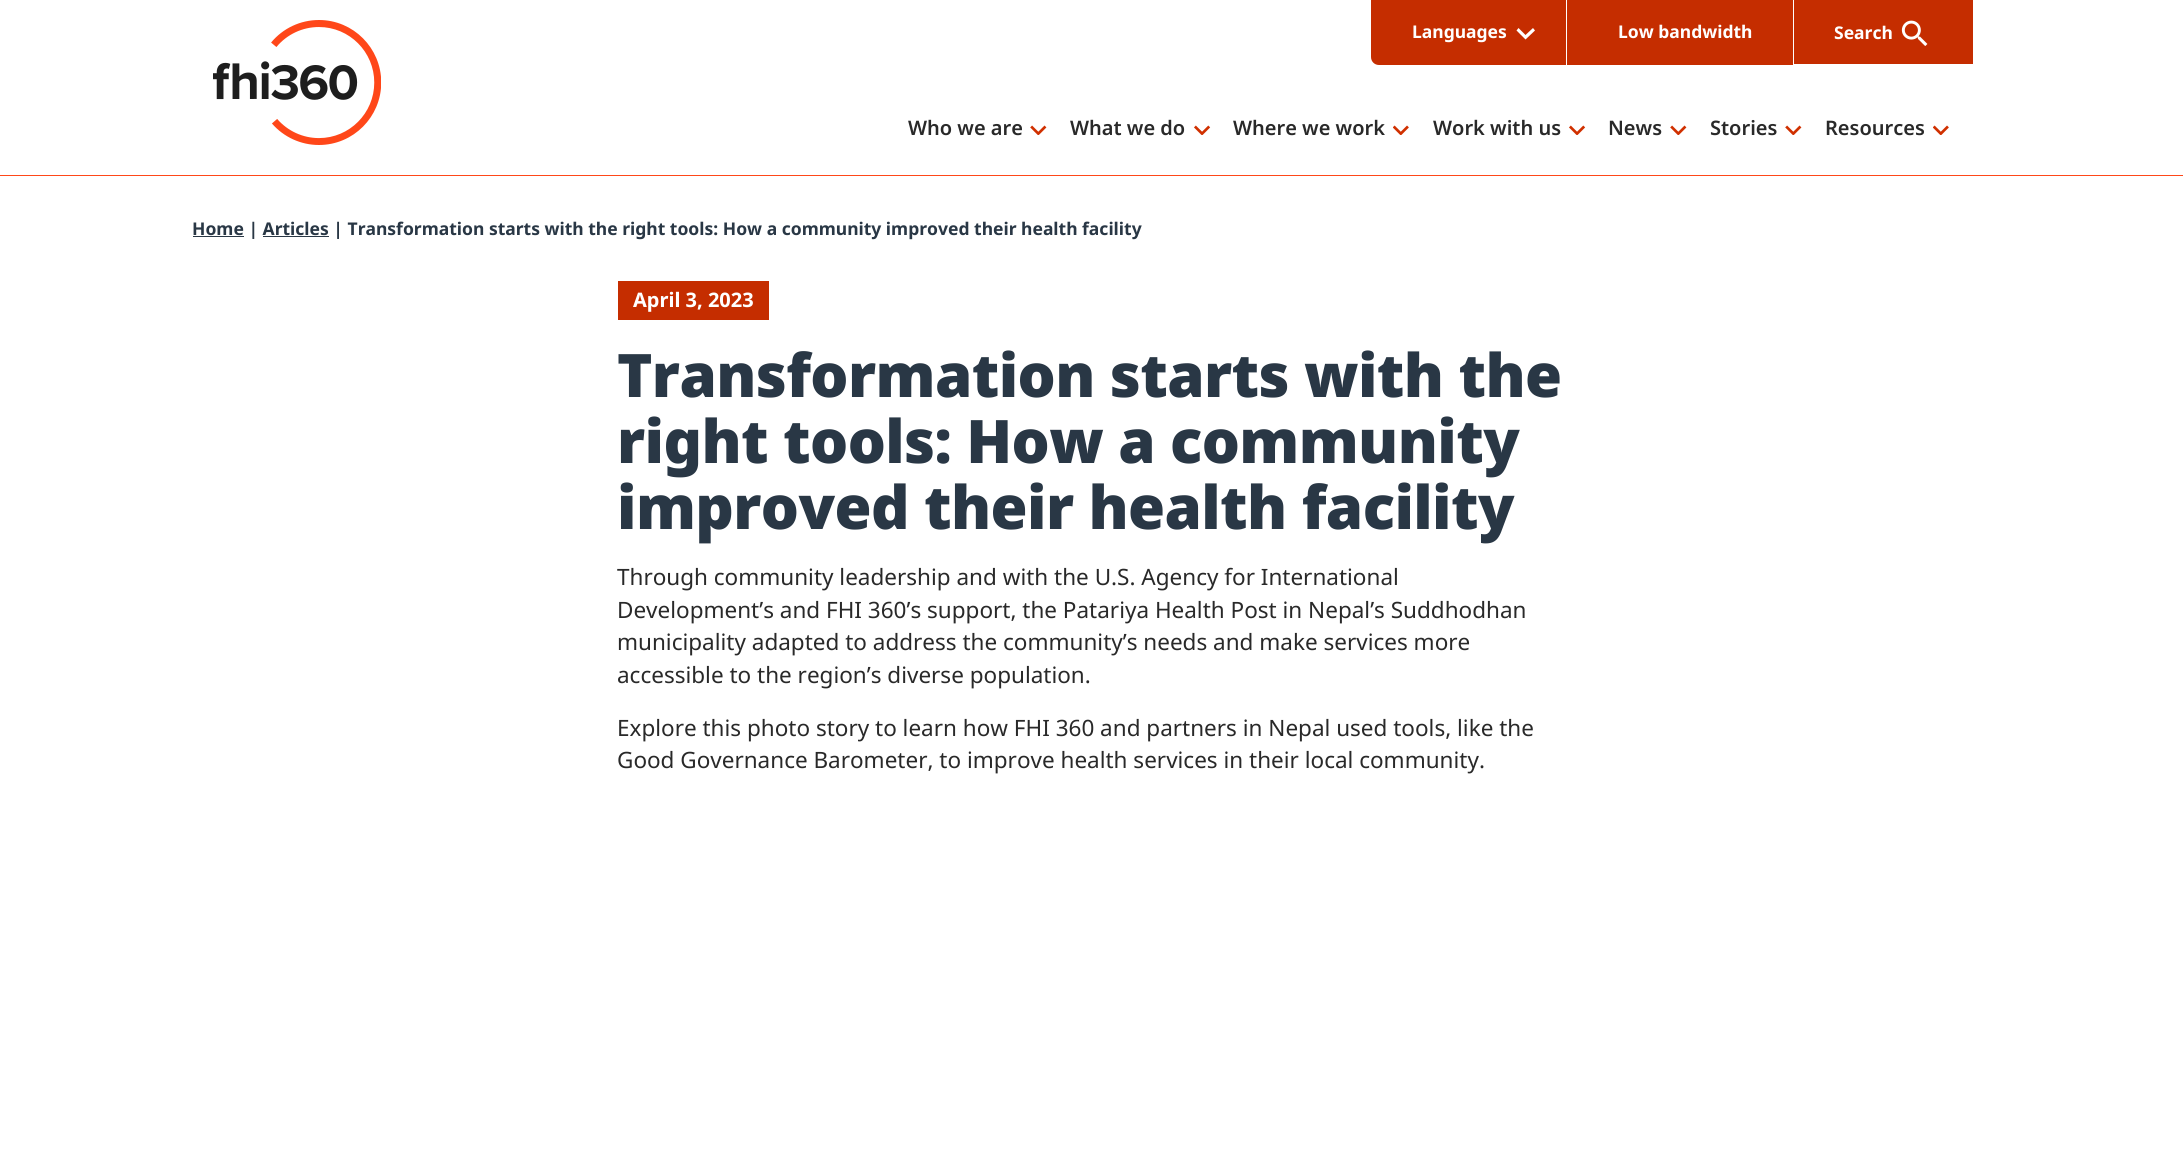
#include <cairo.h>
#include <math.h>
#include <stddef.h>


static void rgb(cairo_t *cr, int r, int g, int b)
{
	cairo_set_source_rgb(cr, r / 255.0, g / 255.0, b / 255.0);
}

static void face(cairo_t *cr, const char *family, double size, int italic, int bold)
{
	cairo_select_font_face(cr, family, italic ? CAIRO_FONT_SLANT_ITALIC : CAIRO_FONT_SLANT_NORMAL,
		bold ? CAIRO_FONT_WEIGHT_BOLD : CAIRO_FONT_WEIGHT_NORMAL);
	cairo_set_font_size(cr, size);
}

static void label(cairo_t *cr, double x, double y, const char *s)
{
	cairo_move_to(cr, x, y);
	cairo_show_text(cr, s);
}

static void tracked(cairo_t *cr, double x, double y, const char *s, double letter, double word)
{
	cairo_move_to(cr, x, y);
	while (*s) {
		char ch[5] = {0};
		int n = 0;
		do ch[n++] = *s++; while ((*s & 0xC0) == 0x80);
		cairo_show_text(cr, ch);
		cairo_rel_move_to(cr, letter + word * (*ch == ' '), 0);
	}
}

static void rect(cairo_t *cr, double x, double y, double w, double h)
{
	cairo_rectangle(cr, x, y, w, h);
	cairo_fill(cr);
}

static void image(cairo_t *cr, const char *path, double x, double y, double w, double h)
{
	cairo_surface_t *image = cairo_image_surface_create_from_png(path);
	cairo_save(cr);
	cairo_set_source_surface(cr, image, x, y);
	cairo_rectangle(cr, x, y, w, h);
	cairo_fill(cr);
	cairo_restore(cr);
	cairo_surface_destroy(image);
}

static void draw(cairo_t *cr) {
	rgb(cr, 255, 255, 255);
	cairo_paint(cr);
	rgb(cr, 255, 71, 25);
	rect(cr, 0, 175, 2183, 1);
	image(cr, "image0.png", 213, 20, 168, 125);
	rgb(cr, 197, 45, 0);
	cairo_new_path(cr);
	cairo_move_to(cr, 1371, -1);
	cairo_line_to(cr, 1794, -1);
	cairo_line_to(cr, 1794, 65);
	cairo_line_to(cr, 1379, 65);
	cairo_curve_to(cr, 1374.5, 65, 1371, 61.5, 1371, 57);
	cairo_close_path(cr);
	cairo_fill(cr);
	rgb(cr, 255, 255, 255);
	cairo_set_fill_rule(cr, CAIRO_FILL_RULE_EVEN_ODD);
	cairo_new_path(cr);
	cairo_move_to(cr, 1518.5, 28);
	cairo_line_to(cr, 1525.5, 35);
	cairo_line_to(cr, 1533, 28);
	cairo_line_to(cr, 1535, 30.5);
	cairo_line_to(cr, 1525.5, 39.5);
	cairo_line_to(cr, 1516.5, 30.5);
	cairo_close_path(cr);
	cairo_fill(cr);
	rect(cr, 1566, 0, 1, 65);
	face(cr, "Noto Sans", 17.5, 0, 1);
	label(cr, 1412, 38, "Languages");
	rect(cr, 1793, 0, 1, 65);
	label(cr, 1618, 38, "Low bandwidth");
	rgb(cr, 197, 45, 0);
	rect(cr, 1794, 0, 179, 64);
	rgb(cr, 255, 255, 255);
	label(cr, 1834, 39, "Search");
	image(cr, "image1.png", 1901, 20, 27, 26);
	face(cr, "Noto Sans SemiBold", 20, 0, 0);
	rgb(cr, 41, 41, 41);
	label(cr, 908, 135, "Who we are");
	image(cr, "image2.png", 1030, 125, 17, 10);
	label(cr, 1070, 135, "What we do");
	image(cr, "image3.png", 1194, 125, 17, 10);
	label(cr, 1233, 135, "Where we work");
	image(cr, "image4.png", 1393, 125, 16, 10);
	label(cr, 1433, 135, "Work with us");
	image(cr, "image3.png", 1569, 125, 17, 10);
	label(cr, 1608, 135, "News");
	image(cr, "image2.png", 1670, 125, 17, 10);
	label(cr, 1710, 135, "Stories");
	image(cr, "image2.png", 1785, 125, 17, 10);
	label(cr, 1825, 135, "Resources");
	image(cr, "image4.png", 1933, 125, 16, 10);
	rgb(cr, 41, 55, 69);
	rect(cr, 193, 236, 51, 1);
	face(cr, "Noto Sans", 17.5, 0, 1);
	label(cr, 192, 235, "Home | Articles | Transformation starts with the right tools: How a community improved their health facility");
	rect(cr, 263, 236, 66, 1);
	rgb(cr, 197, 45, 0);
	rect(cr, 618, 281, 151, 39);
	face(cr, "Noto Sans", 20, 0, 1);
	rgb(cr, 255, 255, 255);
	label(cr, 633, 307, "April 3, 2023");
	face(cr, "Noto Sans Black", 60, 0, 0);
	rgb(cr, 41, 55, 69);
	tracked(cr, 617, 397, "Transformation starts with the", -0.6, 0);
	tracked(cr, 617, 463, "right tools: How a community", -0.6, 0);
	tracked(cr, 617, 529, "improved their health facility", -0.6, 0);
	face(cr, "Noto Sans", 22.5, 0, 0);
	rgb(cr, 41, 41, 41);
	label(cr, 617, 585, "Through community leadership and with the U.S. Agency for International");
	label(cr, 617, 618, "Development’s and FHI 360’s support, the Patariya Health Post in Nepal’s Suddhodhan");
	label(cr, 617, 650, "municipality adapted to address the community’s needs and make services more");
	label(cr, 617, 683, "accessible to the region’s diverse population.");
	label(cr, 617, 736, "Explore this photo story to learn how FHI 360 and partners in Nepal used tools, like the");
	label(cr, 617, 768, "Good Governance Barometer, to improve health services in their local community.");
}

int main(void) {
	cairo_surface_t *surface = cairo_image_surface_create(CAIRO_FORMAT_RGB24, 2183, 1163);
	cairo_t *cr = cairo_create(surface);
	cairo_font_options_t *options = cairo_font_options_create();
	cairo_font_options_set_hint_metrics(options, CAIRO_HINT_METRICS_OFF);
	cairo_font_options_set_hint_style(options, CAIRO_HINT_STYLE_NONE);
	cairo_set_font_options(cr, options);
	cairo_set_miter_limit(cr, 4);
	draw(cr);
	cairo_surface_write_to_png(surface, "render.png");
	cairo_font_options_destroy(options);
	cairo_destroy(cr);
	cairo_surface_destroy(surface);
	return 0;
}
